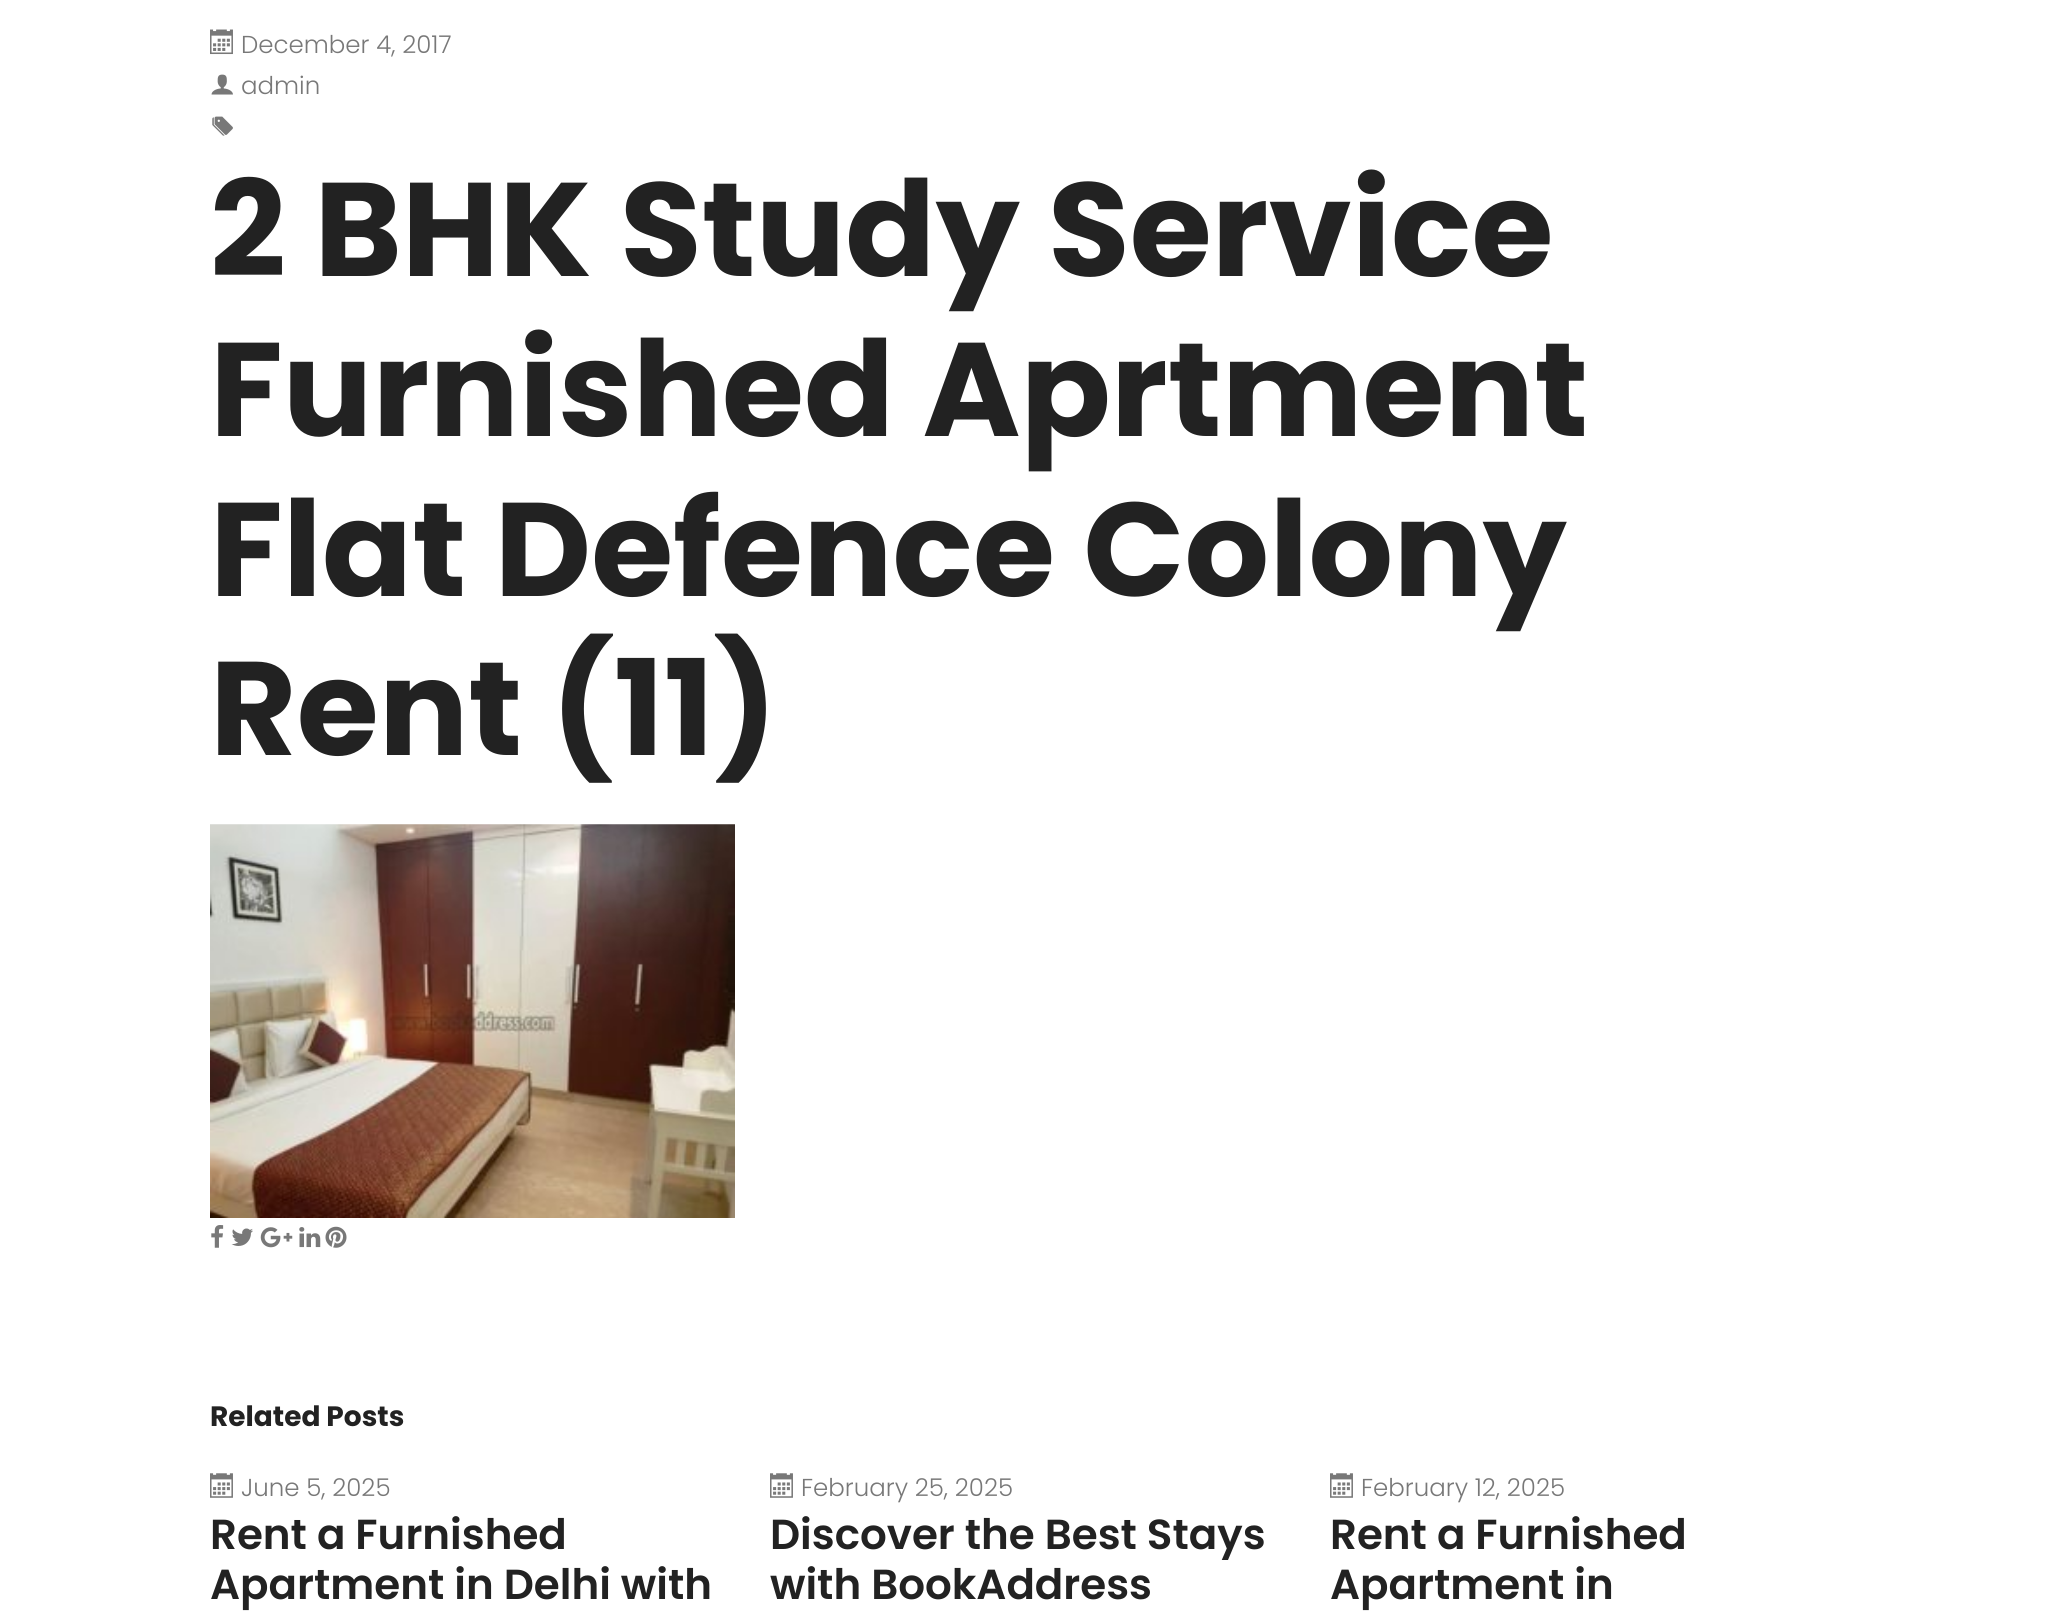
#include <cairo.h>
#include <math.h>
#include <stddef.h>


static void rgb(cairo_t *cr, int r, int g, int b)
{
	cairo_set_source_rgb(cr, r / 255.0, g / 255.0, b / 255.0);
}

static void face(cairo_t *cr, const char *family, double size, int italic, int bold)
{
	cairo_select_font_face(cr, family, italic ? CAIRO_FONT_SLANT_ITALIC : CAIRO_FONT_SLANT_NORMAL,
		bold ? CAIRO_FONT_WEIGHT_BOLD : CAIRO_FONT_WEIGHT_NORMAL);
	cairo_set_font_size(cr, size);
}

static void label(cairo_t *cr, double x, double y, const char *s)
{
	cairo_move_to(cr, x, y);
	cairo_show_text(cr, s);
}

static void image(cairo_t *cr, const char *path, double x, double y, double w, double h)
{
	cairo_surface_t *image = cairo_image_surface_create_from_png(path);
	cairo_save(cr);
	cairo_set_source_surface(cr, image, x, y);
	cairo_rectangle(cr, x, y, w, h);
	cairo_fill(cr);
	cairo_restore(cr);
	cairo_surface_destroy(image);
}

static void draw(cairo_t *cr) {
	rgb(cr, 255, 255, 255);
	cairo_paint(cr);
	image(cr, "image0.png", 210, 29, 23, 26);
	face(cr, "Poppins Light", 24.5, 0, 0);
	rgb(cr, 120, 120, 120);
	label(cr, 241, 53, "December 4, 2017");
	image(cr, "image1.png", 211, 74, 22, 21);
	label(cr, 241, 94, "admin");
	image(cr, "image2.png", 212, 116, 21, 20);
	face(cr, "Poppins", 133, 0, 1);
	rgb(cr, 34, 34, 34);
	label(cr, 210, 276, "2 BHK Study Service");
	label(cr, 210, 436, "Furnished Aprtment");
	label(cr, 210, 596, "Flat Defence Colony");
	label(cr, 210, 755, "Rent (11)");
	image(cr, "image3.png", 210, 824, 525, 394);
	image(cr, "image4.png", 211, 1225, 13, 23);
	image(cr, "image5.png", 231, 1228, 22, 18);
	image(cr, "image6.png", 260, 1227, 33, 21);
	image(cr, "image7.png", 299, 1227, 22, 21);
	image(cr, "image8.png", 325, 1226, 22, 22);
	face(cr, "Poppins", 28, 0, 1);
	label(cr, 210, 1426, "Related Posts");
	image(cr, "image9.png", 210, 1473, 23, 25);
	face(cr, "Poppins Light", 24.5, 0, 0);
	rgb(cr, 120, 120, 120);
	label(cr, 241, 1496, "June 5, 2025");
	face(cr, "Poppins SemiBold", 42, 0, 0);
	rgb(cr, 34, 34, 34);
	label(cr, 210, 1549, "Rent a Furnished");
	label(cr, 210, 1599, "Apartment in Delhi with");
	image(cr, "image9.png", 770, 1473, 23, 25);
	face(cr, "Poppins Light", 24.5, 0, 0);
	rgb(cr, 120, 120, 120);
	label(cr, 801, 1496, "February 25, 2025");
	face(cr, "Poppins SemiBold", 42, 0, 0);
	rgb(cr, 34, 34, 34);
	label(cr, 770, 1549, "Discover the Best Stays");
	label(cr, 770, 1599, "with BookAddress");
	image(cr, "image9.png", 1330, 1473, 23, 25);
	face(cr, "Poppins Light", 24.5, 0, 0);
	rgb(cr, 120, 120, 120);
	label(cr, 1361, 1496, "February 12, 2025");
	face(cr, "Poppins SemiBold", 42, 0, 0);
	rgb(cr, 34, 34, 34);
	label(cr, 1330, 1549, "Rent a Furnished");
	label(cr, 1330, 1599, "Apartment in");
}

int main(void) {
	cairo_surface_t *surface = cairo_image_surface_create(CAIRO_FORMAT_RGB24, 2046, 1614);
	cairo_t *cr = cairo_create(surface);
	cairo_font_options_t *options = cairo_font_options_create();
	cairo_font_options_set_hint_metrics(options, CAIRO_HINT_METRICS_OFF);
	cairo_font_options_set_hint_style(options, CAIRO_HINT_STYLE_NONE);
	cairo_set_font_options(cr, options);
	cairo_set_miter_limit(cr, 4);
	draw(cr);
	cairo_surface_write_to_png(surface, "render.png");
	cairo_font_options_destroy(options);
	cairo_destroy(cr);
	cairo_surface_destroy(surface);
	return 0;
}
